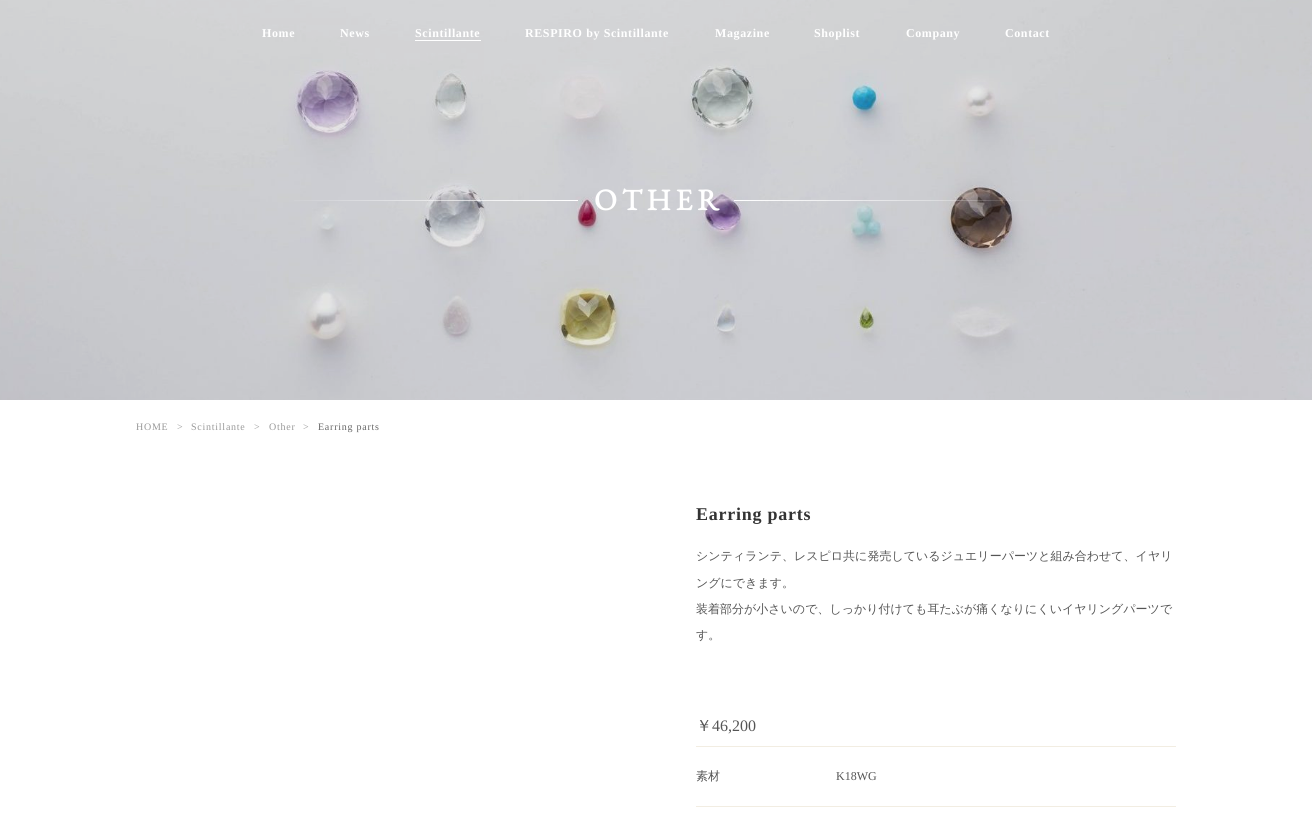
#include <cairo.h>
#include <math.h>
#include <stddef.h>


static void rgb(cairo_t *cr, int r, int g, int b)
{
	cairo_set_source_rgb(cr, r / 255.0, g / 255.0, b / 255.0);
}

static void face(cairo_t *cr, const char *family, double size, int italic, int bold)
{
	cairo_select_font_face(cr, family, italic ? CAIRO_FONT_SLANT_ITALIC : CAIRO_FONT_SLANT_NORMAL,
		bold ? CAIRO_FONT_WEIGHT_BOLD : CAIRO_FONT_WEIGHT_NORMAL);
	cairo_set_font_size(cr, size);
}

static void label(cairo_t *cr, double x, double y, const char *s)
{
	cairo_move_to(cr, x, y);
	cairo_show_text(cr, s);
}

static void tracked(cairo_t *cr, double x, double y, const char *s, double letter, double word)
{
	cairo_move_to(cr, x, y);
	while (*s) {
		char ch[5] = {0};
		int n = 0;
		do ch[n++] = *s++; while ((*s & 0xC0) == 0x80);
		cairo_show_text(cr, ch);
		cairo_rel_move_to(cr, letter + word * (*ch == ' '), 0);
	}
}

static void rect(cairo_t *cr, double x, double y, double w, double h)
{
	cairo_rectangle(cr, x, y, w, h);
	cairo_fill(cr);
}

static void image(cairo_t *cr, const char *path, double x, double y, double w, double h)
{
	cairo_surface_t *image = cairo_image_surface_create_from_png(path);
	cairo_save(cr);
	cairo_set_source_surface(cr, image, x, y);
	cairo_rectangle(cr, x, y, w, h);
	cairo_fill(cr);
	cairo_restore(cr);
	cairo_surface_destroy(image);
}

static void draw(cairo_t *cr) {
	cairo_pattern_t *gradient;
	rgb(cr, 255, 255, 255);
	cairo_paint(cr);
	image(cr, "image0.png", 0, 0, 1312, 400);
	face(cr, "Liberation Serif", 12, 0, 1);
	rgb(cr, 255, 255, 255);
	tracked(cr, 262, 37, "Home", 0.6, 0);
	tracked(cr, 340, 37, "News", 0.6, 0);
	tracked(cr, 415, 37, "Scintillante", 0.6, 0);
	rect(cr, 415, 40, 66, 1);
	tracked(cr, 525, 37, "RESPIRO by Scintillante", 0.6, 0);
	tracked(cr, 715, 37, "Magazine", 0.6, 0);
	tracked(cr, 814, 37, "Shoplist", 0.6, 0);
	tracked(cr, 906, 37, "Company", 0.6, 0);
	tracked(cr, 1005, 37, "Contact", 0.6, 0);
	gradient = cairo_pattern_create_linear(578, 200, 278, 200);
	cairo_pattern_add_color_stop_rgba(gradient, 0, 1, 1, 1, 1);
	cairo_pattern_add_color_stop_rgba(gradient, 1, 1, 1, 1, 0);
	cairo_set_source(cr, gradient);
	cairo_pattern_destroy(gradient);
	rect(cr, 294, 200, 284, 1);
	face(cr, "EB Garamond", 30, 0, 1);
	rgb(cr, 255, 255, 255);
	tracked(cr, 594, 210, "OTHER", 4.75, 0);
	face(cr, "Liberation Serif", 10, 0, 0);
	rgb(cr, 153, 153, 153);
	tracked(cr, 136, 430, "HOME", 0.75, 0);
	tracked(cr, 177, 430, ">", 0.75, 0);
	tracked(cr, 191, 430, "Scintillante", 0.75, 0);
	tracked(cr, 254, 430, ">", 0.75, 0);
	tracked(cr, 269, 430, "Other", 0.75, 0);
	tracked(cr, 303, 430, ">", 0.75, 0);
	rgb(cr, 102, 102, 102);
	tracked(cr, 318, 430, "Earring parts", 0.75, 0);
	face(cr, "Liberation Serif", 18, 0, 1);
	rgb(cr, 51, 51, 51);
	tracked(cr, 696, 520, "Earring parts", 0.75, 0);
	face(cr, "WenQuanYi Zen Hei Medium", 12, 0, 0);
	rgb(cr, 85, 85, 85);
	label(cr, 696, 560, "シンティランテ、レスピロ共に発売しているジュエリーパーツと組み合わせて、イヤリ");
	label(cr, 696, 587, "ングにできます。");
	label(cr, 696, 613, "装着部分が小さいので、しっかり付けても耳たぶが痛くなりにくいイヤリングパーツで");
	label(cr, 696, 639, "す。");
	face(cr, "WenQuanYi Zen Hei Medium", 16, 0, 0);
	label(cr, 696, 731, "￥");
	face(cr, "Liberation Serif", 16, 0, 0);
	label(cr, 712, 731, "46,200");
	rgb(cr, 242, 237, 226);
	rect(cr, 696, 746, 480, 1);
	rect(cr, 696, 806, 480, 1);
	face(cr, "WenQuanYi Zen Hei Medium", 12, 0, 0);
	rgb(cr, 85, 85, 85);
	label(cr, 696, 780, "素材");
	face(cr, "Liberation Serif", 12, 0, 0);
	label(cr, 836, 780, "K18WG");
}

int main(void) {
	cairo_surface_t *surface = cairo_image_surface_create(CAIRO_FORMAT_RGB24, 1312, 833);
	cairo_t *cr = cairo_create(surface);
	cairo_font_options_t *options = cairo_font_options_create();
	cairo_font_options_set_hint_metrics(options, CAIRO_HINT_METRICS_OFF);
	cairo_font_options_set_hint_style(options, CAIRO_HINT_STYLE_NONE);
	cairo_set_font_options(cr, options);
	cairo_set_miter_limit(cr, 4);
	draw(cr);
	cairo_surface_write_to_png(surface, "render.png");
	cairo_font_options_destroy(options);
	cairo_destroy(cr);
	cairo_surface_destroy(surface);
	return 0;
}
